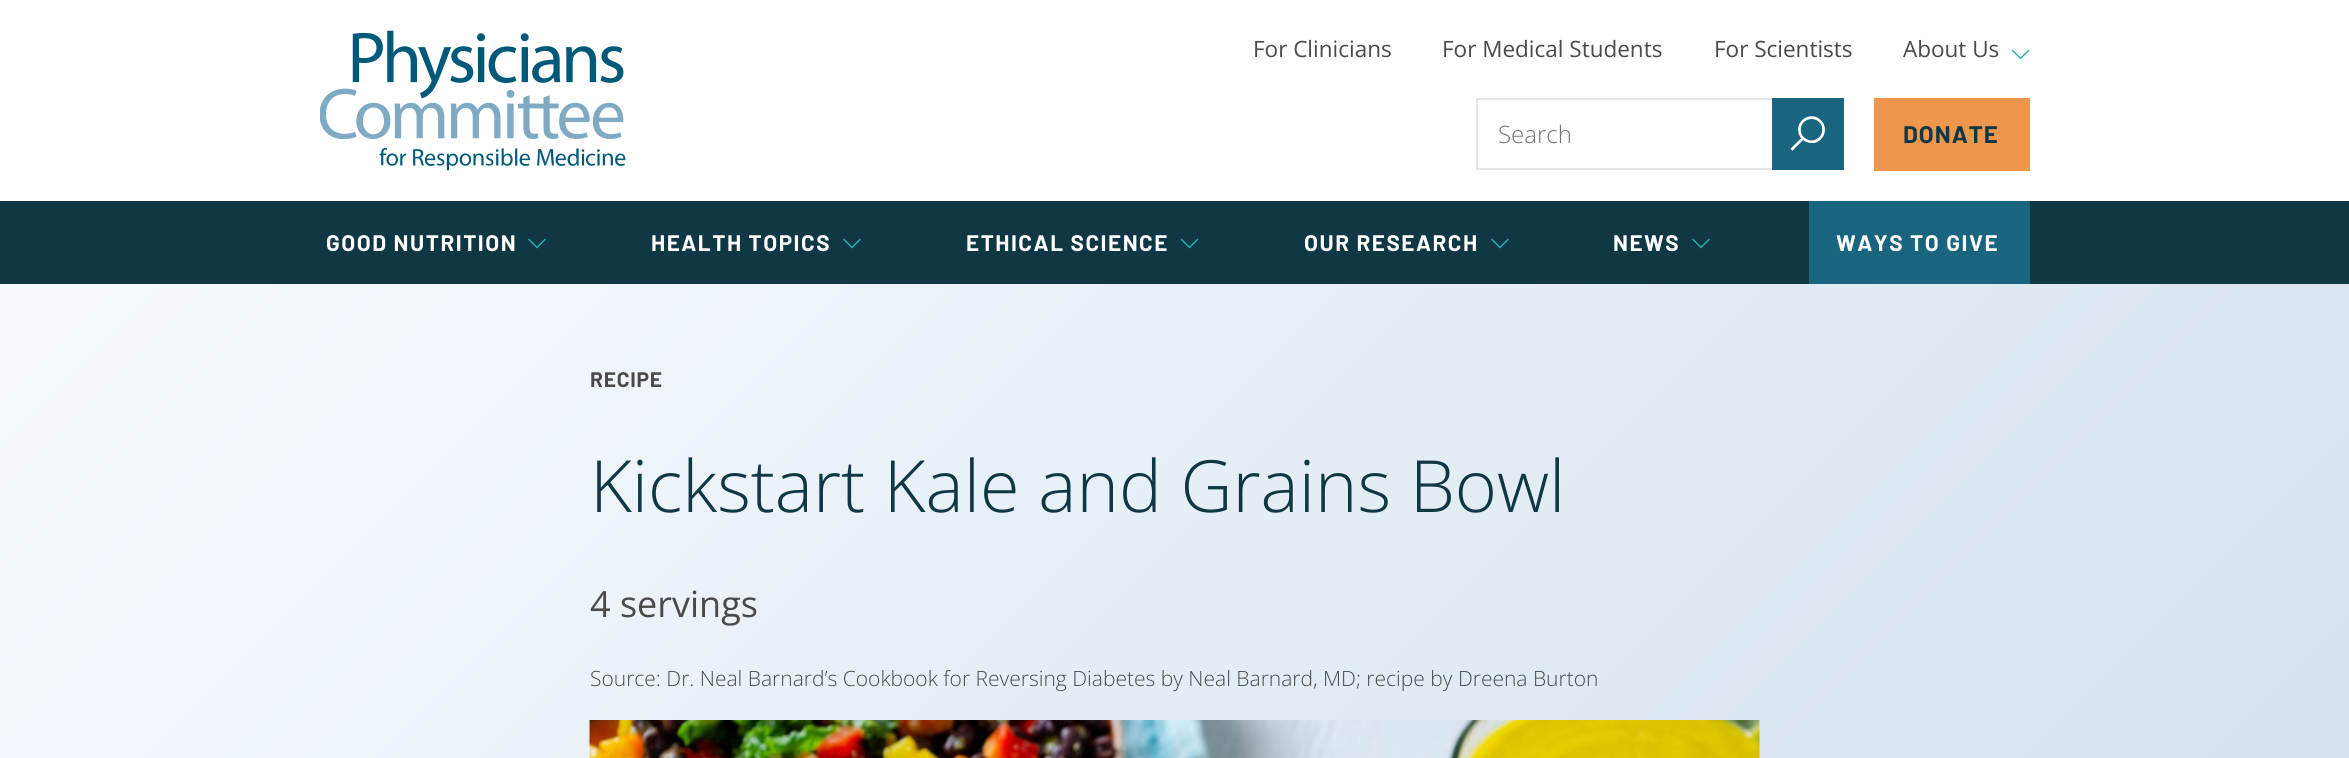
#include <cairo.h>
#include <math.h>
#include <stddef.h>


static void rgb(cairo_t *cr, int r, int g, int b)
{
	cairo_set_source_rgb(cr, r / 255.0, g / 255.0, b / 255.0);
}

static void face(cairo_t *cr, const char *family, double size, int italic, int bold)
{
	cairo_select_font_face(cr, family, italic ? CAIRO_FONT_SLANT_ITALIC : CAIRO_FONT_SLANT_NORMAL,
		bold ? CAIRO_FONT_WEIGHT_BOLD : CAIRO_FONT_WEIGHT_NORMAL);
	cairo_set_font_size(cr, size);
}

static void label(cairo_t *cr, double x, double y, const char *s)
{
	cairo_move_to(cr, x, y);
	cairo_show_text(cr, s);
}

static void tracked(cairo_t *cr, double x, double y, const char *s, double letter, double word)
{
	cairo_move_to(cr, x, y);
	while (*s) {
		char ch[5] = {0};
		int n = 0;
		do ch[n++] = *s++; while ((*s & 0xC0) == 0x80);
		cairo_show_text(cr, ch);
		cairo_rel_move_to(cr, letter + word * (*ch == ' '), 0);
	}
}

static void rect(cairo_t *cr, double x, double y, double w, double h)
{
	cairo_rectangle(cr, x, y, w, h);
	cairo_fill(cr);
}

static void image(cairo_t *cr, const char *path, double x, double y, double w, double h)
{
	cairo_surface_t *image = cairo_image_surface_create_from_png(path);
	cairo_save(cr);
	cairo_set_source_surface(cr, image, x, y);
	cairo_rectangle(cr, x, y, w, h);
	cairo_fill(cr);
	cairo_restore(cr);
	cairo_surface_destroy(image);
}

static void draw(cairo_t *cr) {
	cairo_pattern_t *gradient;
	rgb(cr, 255, 255, 255);
	cairo_paint(cr);
	image(cr, "image0.png", 320, 30, 306, 141);
	face(cr, "Open Sans", 22.5, 0, 0);
	rgb(cr, 74, 74, 74);
	label(cr, 1253, 57, "For Clinicians");
	label(cr, 1442, 57, "For Medical Students");
	label(cr, 1714, 57, "For Scientists");
	label(cr, 1903, 57, "About Us");
	image(cr, "image1.png", 2011, 49, 19, 11);
	cairo_rectangle(cr, 1477, 99, 366, 70);
	rgb(cr, 229, 229, 229);
	cairo_stroke(cr);
	face(cr, "Open Sans Light", 24, 0, 0);
	rgb(cr, 117, 117, 117);
	label(cr, 1498, 143, "Search");
	rgb(cr, 25, 100, 126);
	rect(cr, 1772, 98, 72, 72);
	image(cr, "image2.png", 1790, 116, 35, 35);
	rgb(cr, 238, 150, 75);
	rect(cr, 1874, 98, 156, 73);
	face(cr, "Barlow", 24, 0, 1);
	rgb(cr, 15, 55, 68);
	tracked(cr, 1903, 143, "DONATE", 1, 0);
	rect(cr, 0, 201, 2349, 83);
	face(cr, "Barlow", 22.5, 0, 1);
	rgb(cr, 255, 255, 255);
	tracked(cr, 326, 251, "GOOD NUTRITION", 1.5, 0);
	image(cr, "image3.png", 528, 238, 18, 11);
	tracked(cr, 651, 251, "HEALTH TOPICS", 1.5, 0);
	image(cr, "image3.png", 843, 238, 18, 11);
	tracked(cr, 966, 251, "ETHICAL SCIENCE", 1.5, 0);
	image(cr, "image4.png", 1180, 238, 19, 11);
	tracked(cr, 1304, 251, "OUR RESEARCH", 1.5, 0);
	image(cr, "image3.png", 1491, 238, 18, 11);
	tracked(cr, 1613, 251, "NEWS", 1.5, 0);
	image(cr, "image3.png", 1692, 238, 18, 11);
	rgb(cr, 25, 100, 126);
	rect(cr, 1809, 201, 221, 83);
	rgb(cr, 255, 255, 255);
	tracked(cr, 1836, 251, "WAYS TO GIVE", 1.5, 0);
	gradient = cairo_pattern_create_linear(459, -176, 1890, 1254);
	cairo_pattern_add_color_stop_rgba(gradient, 0, 0.969, 0.984, 1, 1);
	cairo_pattern_add_color_stop_rgba(gradient, 1, 0.831, 0.886, 0.929, 1);
	cairo_set_source(cr, gradient);
	cairo_pattern_destroy(gradient);
	rect(cr, 0, 284, 2349, 474);
	face(cr, "Barlow", 21, 0, 1);
	rgb(cr, 74, 74, 74);
	tracked(cr, 590, 387, "RECIPE", 0.75, 0);
	face(cr, "Open Sans Light", 72, 0, 0);
	rgb(cr, 15, 55, 68);
	label(cr, 590, 512, "Kickstart Kale and Grains Bowl");
	face(cr, "Open Sans", 36, 0, 0);
	rgb(cr, 74, 74, 74);
	label(cr, 590, 617, "4 servings");
	face(cr, "Open Sans Light", 21, 0, 0);
	label(cr, 590, 686, "Source: Dr. Neal Barnard’s Cookbook for Reversing Diabetes by Neal Barnard, MD; recipe by Dreena Burton");
	image(cr, "image5.png", 589, 720, 1171, 38);
}

int main(void) {
	cairo_surface_t *surface = cairo_image_surface_create(CAIRO_FORMAT_RGB24, 2349, 758);
	cairo_t *cr = cairo_create(surface);
	cairo_font_options_t *options = cairo_font_options_create();
	cairo_font_options_set_hint_metrics(options, CAIRO_HINT_METRICS_OFF);
	cairo_font_options_set_hint_style(options, CAIRO_HINT_STYLE_NONE);
	cairo_set_font_options(cr, options);
	cairo_set_miter_limit(cr, 4);
	draw(cr);
	cairo_surface_write_to_png(surface, "render.png");
	cairo_font_options_destroy(options);
	cairo_destroy(cr);
	cairo_surface_destroy(surface);
	return 0;
}
